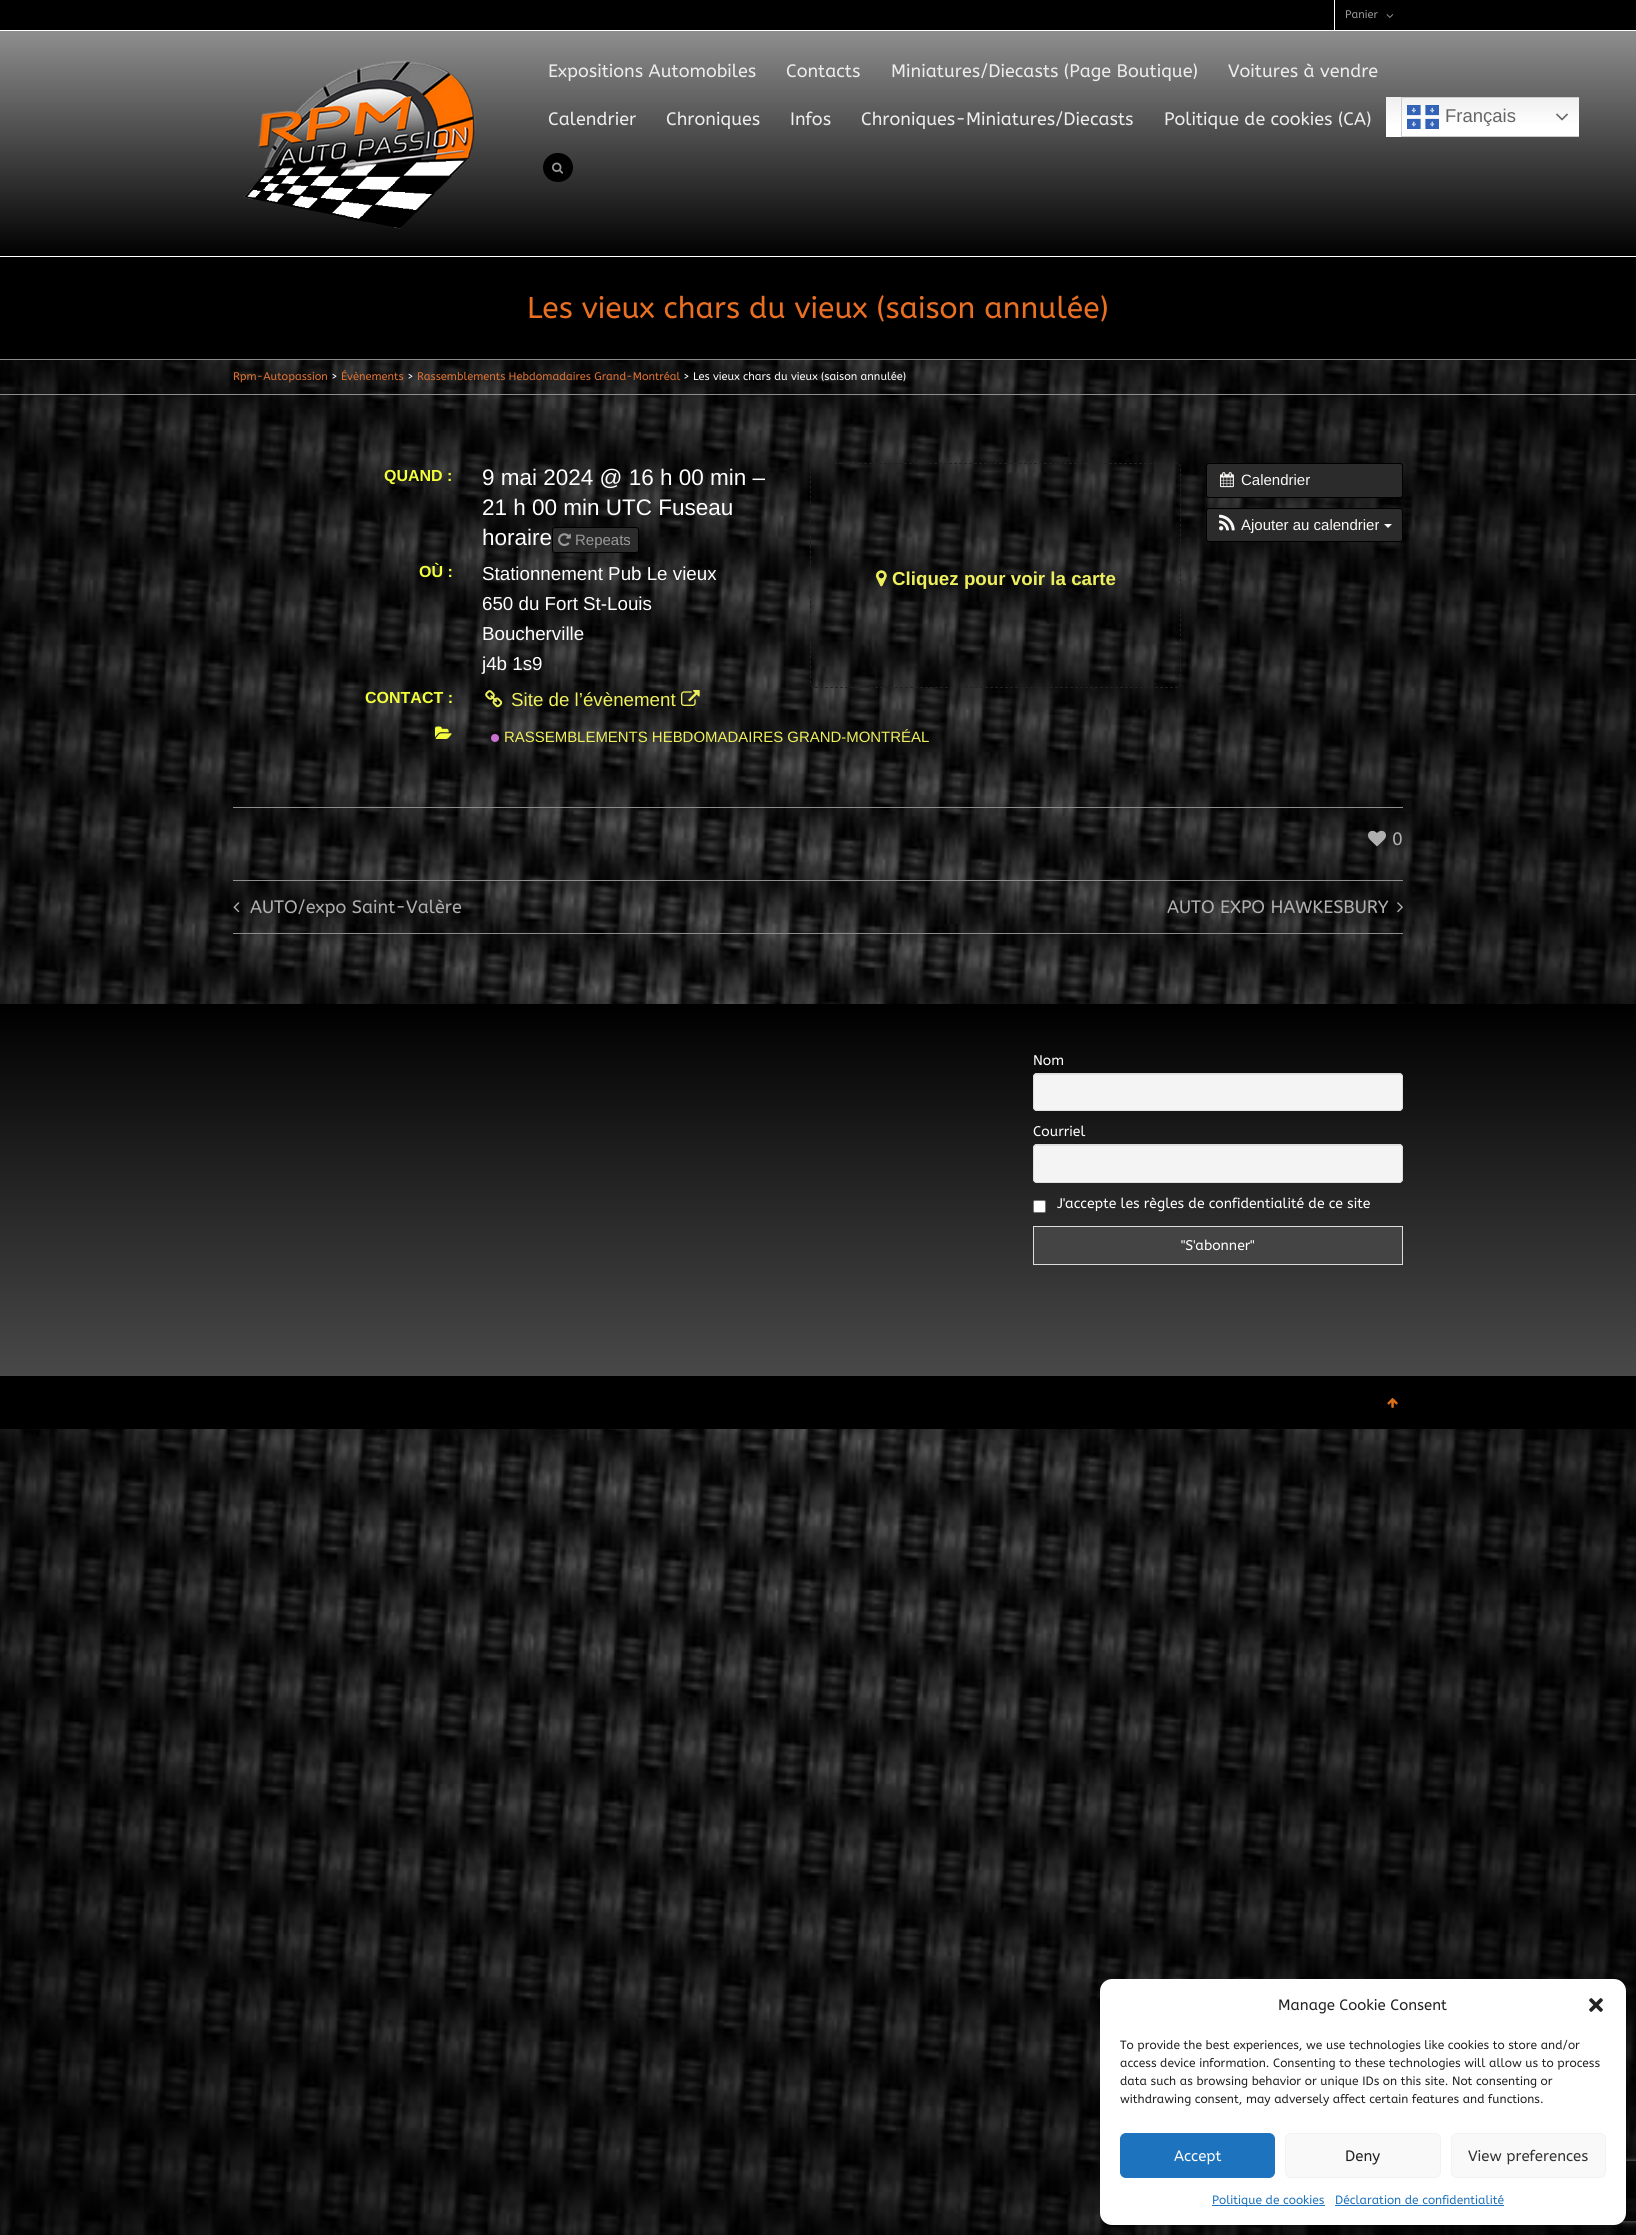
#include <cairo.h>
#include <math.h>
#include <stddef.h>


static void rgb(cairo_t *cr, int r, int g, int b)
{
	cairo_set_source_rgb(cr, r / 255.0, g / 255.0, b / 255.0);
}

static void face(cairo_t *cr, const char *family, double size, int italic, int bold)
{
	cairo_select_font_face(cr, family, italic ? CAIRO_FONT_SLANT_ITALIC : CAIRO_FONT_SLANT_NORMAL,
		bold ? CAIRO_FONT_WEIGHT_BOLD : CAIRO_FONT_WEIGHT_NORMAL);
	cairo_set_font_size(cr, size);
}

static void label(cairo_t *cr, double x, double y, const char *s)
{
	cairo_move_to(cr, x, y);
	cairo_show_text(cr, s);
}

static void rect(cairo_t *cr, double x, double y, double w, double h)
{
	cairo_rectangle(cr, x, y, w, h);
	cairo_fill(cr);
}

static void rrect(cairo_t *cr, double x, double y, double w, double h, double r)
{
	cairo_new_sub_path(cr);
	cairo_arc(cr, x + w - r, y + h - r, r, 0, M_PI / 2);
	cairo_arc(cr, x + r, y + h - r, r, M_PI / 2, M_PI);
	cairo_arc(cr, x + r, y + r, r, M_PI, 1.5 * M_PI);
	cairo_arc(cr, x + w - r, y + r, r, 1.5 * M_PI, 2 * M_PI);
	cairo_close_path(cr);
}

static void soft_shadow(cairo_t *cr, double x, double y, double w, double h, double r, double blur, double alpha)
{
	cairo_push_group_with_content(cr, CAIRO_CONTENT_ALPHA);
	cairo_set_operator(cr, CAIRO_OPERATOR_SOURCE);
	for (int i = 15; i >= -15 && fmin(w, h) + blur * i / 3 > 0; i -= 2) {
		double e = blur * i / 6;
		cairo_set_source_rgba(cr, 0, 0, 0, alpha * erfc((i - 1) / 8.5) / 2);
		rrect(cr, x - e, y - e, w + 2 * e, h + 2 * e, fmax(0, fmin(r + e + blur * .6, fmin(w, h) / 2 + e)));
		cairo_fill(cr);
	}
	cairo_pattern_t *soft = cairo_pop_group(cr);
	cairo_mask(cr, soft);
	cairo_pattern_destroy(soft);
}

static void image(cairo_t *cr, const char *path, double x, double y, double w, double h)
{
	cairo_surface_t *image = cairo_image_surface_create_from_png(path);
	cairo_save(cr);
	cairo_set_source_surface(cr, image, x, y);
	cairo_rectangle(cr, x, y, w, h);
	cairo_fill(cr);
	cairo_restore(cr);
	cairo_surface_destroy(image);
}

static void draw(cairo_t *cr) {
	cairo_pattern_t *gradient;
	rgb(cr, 255, 255, 255);
	cairo_paint(cr);
	image(cr, "image0.png", 0, 360, 1636, 1875);
	rgb(cr, 0, 0, 0);
	rect(cr, 0, 0, 1636, 30);
	rgb(cr, 255, 255, 255);
	rect(cr, 1334, 0, 1, 30);
	face(cr, "ABeeZee", 11, 0, 0);
	rgb(cr, 153, 153, 153);
	label(cr, 1345, 18, "Panier");
	image(cr, "image1.png", 1386, 14, 8, 4);
	gradient = cairo_pattern_create_linear(818, 31, 818, 256);
	cairo_pattern_add_color_stop_rgba(gradient, 0, 0.557, 0.557, 0.557, 1);
	cairo_pattern_add_color_stop_rgba(gradient, 1, 0, 0, 0, 1);
	cairo_set_source(cr, gradient);
	cairo_pattern_destroy(gradient);
	rect(cr, 0, 31, 1636, 225);
	image(cr, "image2.png", 244, 60, 232, 169);
	face(cr, "ABeeZee", 18, 0, 0);
	rgb(cr, 237, 237, 237);
	label(cr, 548, 77, "Expositions Automobiles");
	label(cr, 786, 77, "Contacts");
	label(cr, 891, 77, "Miniatures/Diecasts (Page Boutique)");
	label(cr, 1228, 77, "Voitures à vendre");
	label(cr, 548, 125, "Calendrier");
	label(cr, 666, 125, "Chroniques");
	label(cr, 790, 125, "Infos");
	label(cr, 861, 125, "Chroniques-Miniatures/Diecasts");
	label(cr, 1164, 125, "Politique de cookies (CA)");
	gradient = cairo_pattern_create_linear(1483, 97, 1483, 137);
	cairo_pattern_add_color_stop_rgba(gradient, 0, 0.937, 0.937, 0.937, 1);
	cairo_pattern_add_color_stop_rgba(gradient, 0.7, 1, 1, 1, 1);
	cairo_set_source(cr, gradient);
	cairo_pattern_destroy(gradient);
	rect(cr, 1386, 97, 193, 40);
	cairo_save(cr);
	cairo_rectangle(cr, 1386, 97, 193, 40);
	cairo_clip(cr);
	cairo_rectangle(cr, 1401.5, 97.5, 192, 39);
	rgb(cr, 204, 204, 204);
	cairo_set_line_width(cr, 1);
	cairo_stroke(cr);
	cairo_restore(cr);
	image(cr, "image3.png", 1407, 105, 32, 24);
	face(cr, "Liberation Sans", 18.5, 0, 0);
	rgb(cr, 102, 102, 102);
	label(cr, 1445, 122, "Français");
	image(cr, "image4.png", 1556, 113, 12, 8);
	rgb(cr, 0, 0, 0);
	rrect(cr, 543, 153, 30, 29, 14.5);
	cairo_fill(cr);
	image(cr, "image5.png", 552, 162, 12, 12);
	rect(cr, 0, 257, 1636, 102);
	rgb(cr, 142, 142, 142);
	rect(cr, 0, 359, 1636, 1);
	face(cr, "ABeeZee", 30, 0, 0);
	rgb(cr, 234, 111, 35);
	label(cr, 527, 318, "Les vieux chars du vieux (saison annulée)");
	rgb(cr, 142, 142, 142);
	rect(cr, 0, 394, 1636, 1);
	face(cr, "ABeeZee", 11, 0, 0);
	rgb(cr, 224, 114, 51);
	label(cr, 233, 380, "Rpm-Autopassion");
	rgb(cr, 255, 255, 255);
	label(cr, 331, 380, ">");
	rgb(cr, 224, 114, 51);
	label(cr, 341, 380, "Évènements");
	rgb(cr, 255, 255, 255);
	label(cr, 407, 380, ">");
	rgb(cr, 224, 114, 51);
	label(cr, 417, 380, "Rassemblements Hebdomadaires Grand-Montréal");
	rgb(cr, 255, 255, 255);
	label(cr, 683, 380, "> Les vieux chars du vieux (saison annulée)");
	face(cr, "Liberation Sans", 16, 0, 1);
	rgb(cr, 242, 255, 58);
	label(cr, 384, 481, "QUAND :");
	face(cr, "Liberation Sans", 22.5, 0, 0);
	rgb(cr, 255, 255, 255);
	label(cr, 482, 485, "9 mai 2024 @ 16 h 00 min –");
	label(cr, 482, 515, "21 h 00 min UTC Fuseau");
	label(cr, 482, 545, "horaire");
	rgb(cr, 43, 43, 43);
	rrect(cr, 552.5, 527.5, 86, 25, 2.5);
	cairo_fill_preserve(cr);
	rgb(cr, 0, 0, 0);
	cairo_set_line_width(cr, 1);
	cairo_stroke(cr);
	image(cr, "image6.png", 558, 533, 13, 14);
	face(cr, "Liberation Sans", 15, 0, 0);
	rgb(cr, 153, 153, 153);
	label(cr, 575, 545, "Repeats");
	face(cr, "Liberation Sans", 16, 0, 1);
	rgb(cr, 242, 255, 58);
	label(cr, 419, 577, "OÙ :");
	face(cr, "Liberation Sans", 18.75, 0, 0);
	rgb(cr, 255, 255, 255);
	label(cr, 482, 580, "Stationnement Pub Le vieux");
	label(cr, 482, 610, "650 du Fort St-Louis");
	label(cr, 482, 640, "Boucherville");
	label(cr, 482, 670, "j4b 1s9");
	face(cr, "Liberation Sans", 16, 0, 1);
	rgb(cr, 242, 255, 58);
	label(cr, 365, 703, "CONTACT :");
	image(cr, "image7.png", 485, 690, 18, 18);
	face(cr, "Liberation Sans", 18.75, 0, 0);
	rgb(cr, 238, 239, 93);
	label(cr, 511, 706, "Site de l’évènement");
	image(cr, "image8.png", 681, 690, 19, 16);
	image(cr, "image9.png", 435, 726, 17, 13);
	cairo_set_source_rgba(cr, 0.969, 0.541, 1, 0.8);
	cairo_arc(cr, 495, 738, 4, 0, 2 * M_PI);
	cairo_fill(cr);
	face(cr, "Liberation Sans", 14.95, 0, 0);
	rgb(cr, 238, 239, 93);
	label(cr, 504, 742, "RASSEMBLEMENTS HEBDOMADAIRES GRAND-MONTRÉAL");
	cairo_new_path(cr);
	cairo_move_to(cr, 814, 463.5);
	cairo_line_to(cr, 1177, 463.5);
	cairo_curve_to(cr, 1179, 463.5, 1180.5, 465, 1180.5, 467);
	cairo_line_to(cr, 1180.5, 684);
	cairo_curve_to(cr, 1180.5, 686, 1179, 687.5, 1177, 687.5);
	cairo_line_to(cr, 814, 687.5);
	cairo_curve_to(cr, 812, 687.5, 810.5, 686, 810.5, 684);
	cairo_line_to(cr, 810.5, 467);
	cairo_curve_to(cr, 810.5, 465, 812, 463.5, 814, 463.5);
	cairo_close_path(cr);
	rgb(cr, 34, 34, 34);
	cairo_set_dash(cr, (double[]){3, 2}, 2, 0);
	cairo_stroke(cr);
	image(cr, "image10.png", 876, 570, 11, 17);
	face(cr, "Liberation Sans", 18.75, 0, 1);
	rgb(cr, 238, 239, 93);
	label(cr, 892, 585, "Cliquez pour voir la carte");
	rgb(cr, 43, 43, 43);
	rrect(cr, 1206.5, 463.5, 196, 34, 2.5);
	cairo_fill_preserve(cr);
	rgb(cr, 0, 0, 0);
	cairo_set_dash(cr, NULL, 0, 0);
	cairo_stroke(cr);
	image(cr, "image11.png", 1220, 472, 14, 16);
	face(cr, "Liberation Sans", 15, 0, 0);
	rgb(cr, 249, 248, 246);
	label(cr, 1241, 485, "Calendrier");
	rgb(cr, 43, 43, 43);
	rrect(cr, 1206.5, 508.5, 196, 33, 2.5);
	cairo_fill_preserve(cr);
	rgb(cr, 0, 0, 0);
	cairo_stroke(cr);
	image(cr, "image12.png", 1219, 514, 16, 17);
	rgb(cr, 249, 248, 246);
	label(cr, 1241, 530, "Ajouter au calendrier");
	cairo_new_path(cr);
	cairo_move_to(cr, 1384, 524);
	cairo_line_to(cr, 1392, 524);
	cairo_line_to(cr, 1388, 528);
	cairo_close_path(cr);
	cairo_fill(cr);
	rgb(cr, 142, 142, 142);
	rect(cr, 233, 807, 1170, 1);
	image(cr, "image13.png", 1368, 830, 18, 17);
	face(cr, "ABeeZee", 18, 0, 0);
	rgb(cr, 175, 175, 175);
	label(cr, 1392, 845, "0");
	rgb(cr, 142, 142, 142);
	rect(cr, 233, 880, 1170, 1);
	rect(cr, 233, 933, 1170, 1);
	image(cr, "image14.png", 233, 902, 7, 11);
	rgb(cr, 175, 175, 175);
	label(cr, 250, 913, "AUTO/expo Saint-Valère");
	label(cr, 1167, 913, "AUTO EXPO HAWKESBURY");
	image(cr, "image15.png", 1397, 902, 6, 11);
	gradient = cairo_pattern_create_linear(818, 1004, 818, 1376);
	cairo_pattern_add_color_stop_rgba(gradient, 0, 0, 0, 0, 1);
	cairo_pattern_add_color_stop_rgba(gradient, 1, 0.286, 0.286, 0.286, 1);
	cairo_set_source(cr, gradient);
	cairo_pattern_destroy(gradient);
	rect(cr, 0, 1004, 1636, 372);
	face(cr, "ABeeZee", 14, 0, 0);
	rgb(cr, 255, 255, 255);
	label(cr, 1033, 1065, "Nom");
	rgb(cr, 244, 244, 244);
	rrect(cr, 1033, 1073, 370, 38, 4);
	cairo_fill(cr);
	rgb(cr, 226, 226, 226);
	cairo_new_path(cr);
	cairo_move_to(cr, 1037, 1075);
	cairo_line_to(cr, 1399, 1075);
	cairo_curve_to(cr, 1401, 1075, 1402, 1076, 1402, 1078);
	cairo_curve_to(cr, 1402, 1076, 1401, 1074, 1399, 1074);
	cairo_line_to(cr, 1037, 1074);
	cairo_line_to(cr, 1035, 1075);
	cairo_line_to(cr, 1034, 1078);
	cairo_curve_to(cr, 1034, 1076, 1035, 1075, 1037, 1075);
	cairo_close_path(cr);
	cairo_fill(cr);
	rrect(cr, 1033.5, 1073.5, 369, 37, 3.5);
	rgb(cr, 221, 221, 221);
	cairo_stroke(cr);
	rgb(cr, 255, 255, 255);
	label(cr, 1033, 1136, "Courriel");
	rgb(cr, 244, 244, 244);
	rrect(cr, 1033, 1144, 370, 39, 4);
	cairo_fill(cr);
	rgb(cr, 226, 226, 226);
	cairo_new_path(cr);
	cairo_move_to(cr, 1037, 1146);
	cairo_line_to(cr, 1399, 1146);
	cairo_curve_to(cr, 1401, 1146, 1402, 1147, 1402, 1149);
	cairo_curve_to(cr, 1402, 1147, 1401, 1145, 1399, 1145);
	cairo_line_to(cr, 1037, 1145);
	cairo_line_to(cr, 1035, 1146);
	cairo_line_to(cr, 1034, 1149);
	cairo_curve_to(cr, 1034, 1147, 1035, 1146, 1037, 1146);
	cairo_close_path(cr);
	cairo_fill(cr);
	rrect(cr, 1033.5, 1144.5, 369, 38, 3.5);
	rgb(cr, 221, 221, 221);
	cairo_stroke(cr);
	rgb(cr, 255, 255, 255);
	rrect(cr, 1033.5, 1200.5, 12, 12, 1.5);
	cairo_fill_preserve(cr);
	rgb(cr, 118, 118, 118);
	cairo_stroke(cr);
	rgb(cr, 255, 255, 255);
	label(cr, 1057, 1208, "J'accepte les règles de confidentialité de ce site");
	rgb(cr, 68, 68, 68);
	cairo_rectangle(cr, 1033.5, 1226.5, 369, 38);
	cairo_fill_preserve(cr);
	rgb(cr, 221, 221, 221);
	cairo_stroke(cr);
	rgb(cr, 255, 255, 255);
	label(cr, 1181, 1250, "\"S'abonner\"");
	rgb(cr, 0, 0, 0);
	rect(cr, 0, 1376, 1636, 53);
	image(cr, "image16.png", 1387, 1398, 11, 10);
	rgb(cr, 0, 0, 0);
	soft_shadow(cr, 1100, 1985, 526, 246, 12, 3, 0.23);
	cairo_save(cr);
	cairo_set_fill_rule(cr, CAIRO_FILL_RULE_EVEN_ODD);
	cairo_new_path(cr);
	cairo_move_to(cr, 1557, 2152);
	cairo_line_to(cr, 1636, 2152);
	cairo_line_to(cr, 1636, 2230);
	cairo_line_to(cr, 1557, 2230);
	cairo_close_path(cr);
	cairo_move_to(cr, 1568, 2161);
	cairo_line_to(cr, 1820, 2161);
	cairo_curve_to(cr, 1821, 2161, 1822, 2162, 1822, 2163);
	cairo_line_to(cr, 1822, 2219);
	cairo_curve_to(cr, 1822, 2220, 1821, 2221, 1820, 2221);
	cairo_line_to(cr, 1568, 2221);
	cairo_curve_to(cr, 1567, 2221, 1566, 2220, 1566, 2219);
	cairo_line_to(cr, 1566, 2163);
	cairo_curve_to(cr, 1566, 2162, 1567, 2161, 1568, 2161);
	cairo_close_path(cr);
	cairo_clip(cr);
	rgb(cr, 128, 128, 128);
	soft_shadow(cr, 1566, 2161, 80, 60, 2, 2.5, 1);
	cairo_restore(cr);
	rgb(cr, 255, 255, 255);
	rrect(cr, 1100, 1979, 526, 246, 12);
	cairo_fill(cr);
	face(cr, "ABeeZee", 15, 0, 0);
	rgb(cr, 34, 34, 34);
	label(cr, 1278, 2010, "Manage Cookie Consent");
	image(cr, "image17.png", 1589, 1998, 14, 14);
	face(cr, "ABeeZee", 12, 0, 0);
	label(cr, 1120, 2049, "To provide the best experiences, we use technologies like cookies to store and/or");
	label(cr, 1120, 2067, "access device information. Consenting to these technologies will allow us to process");
	label(cr, 1120, 2085, "data such as browsing behavior or unique IDs on this site. Not consenting or");
	label(cr, 1120, 2103, "withdrawing consent, may adversely affect certain features and functions.");
	rgb(cr, 30, 115, 190);
	rrect(cr, 1120.5, 2133.5, 154, 44, 5.5);
	cairo_fill_preserve(cr);
	cairo_stroke(cr);
	face(cr, "ABeeZee", 15, 0, 0);
	rgb(cr, 255, 255, 255);
	label(cr, 1174, 2161, "Accept");
	rgb(cr, 249, 249, 249);
	rrect(cr, 1285.5, 2133.5, 155, 44, 5.5);
	cairo_fill_preserve(cr);
	rgb(cr, 242, 242, 242);
	cairo_stroke(cr);
	rgb(cr, 34, 34, 34);
	label(cr, 1345, 2161, "Deny");
	rgb(cr, 249, 249, 249);
	rrect(cr, 1451.5, 2133.5, 154, 44, 5.5);
	cairo_fill_preserve(cr);
	rgb(cr, 242, 242, 242);
	cairo_stroke(cr);
	rgb(cr, 51, 51, 51);
	label(cr, 1468, 2161, "View preferences");
	rgb(cr, 30, 115, 190);
	rect(cr, 1212, 2205, 113, 1);
	face(cr, "ABeeZee", 12, 0, 0);
	label(cr, 1212, 2204, "Politique de cookies");
	label(cr, 1335, 2204, "Déclaration de confidentialité");
	rect(cr, 1335, 2205, 169, 1);
}

int main(void) {
	cairo_surface_t *surface = cairo_image_surface_create(CAIRO_FORMAT_RGB24, 1636, 2235);
	cairo_t *cr = cairo_create(surface);
	cairo_font_options_t *options = cairo_font_options_create();
	cairo_font_options_set_hint_metrics(options, CAIRO_HINT_METRICS_OFF);
	cairo_font_options_set_hint_style(options, CAIRO_HINT_STYLE_NONE);
	cairo_set_font_options(cr, options);
	cairo_set_miter_limit(cr, 4);
	draw(cr);
	cairo_surface_write_to_png(surface, "render.png");
	cairo_font_options_destroy(options);
	cairo_destroy(cr);
	cairo_surface_destroy(surface);
	return 0;
}
